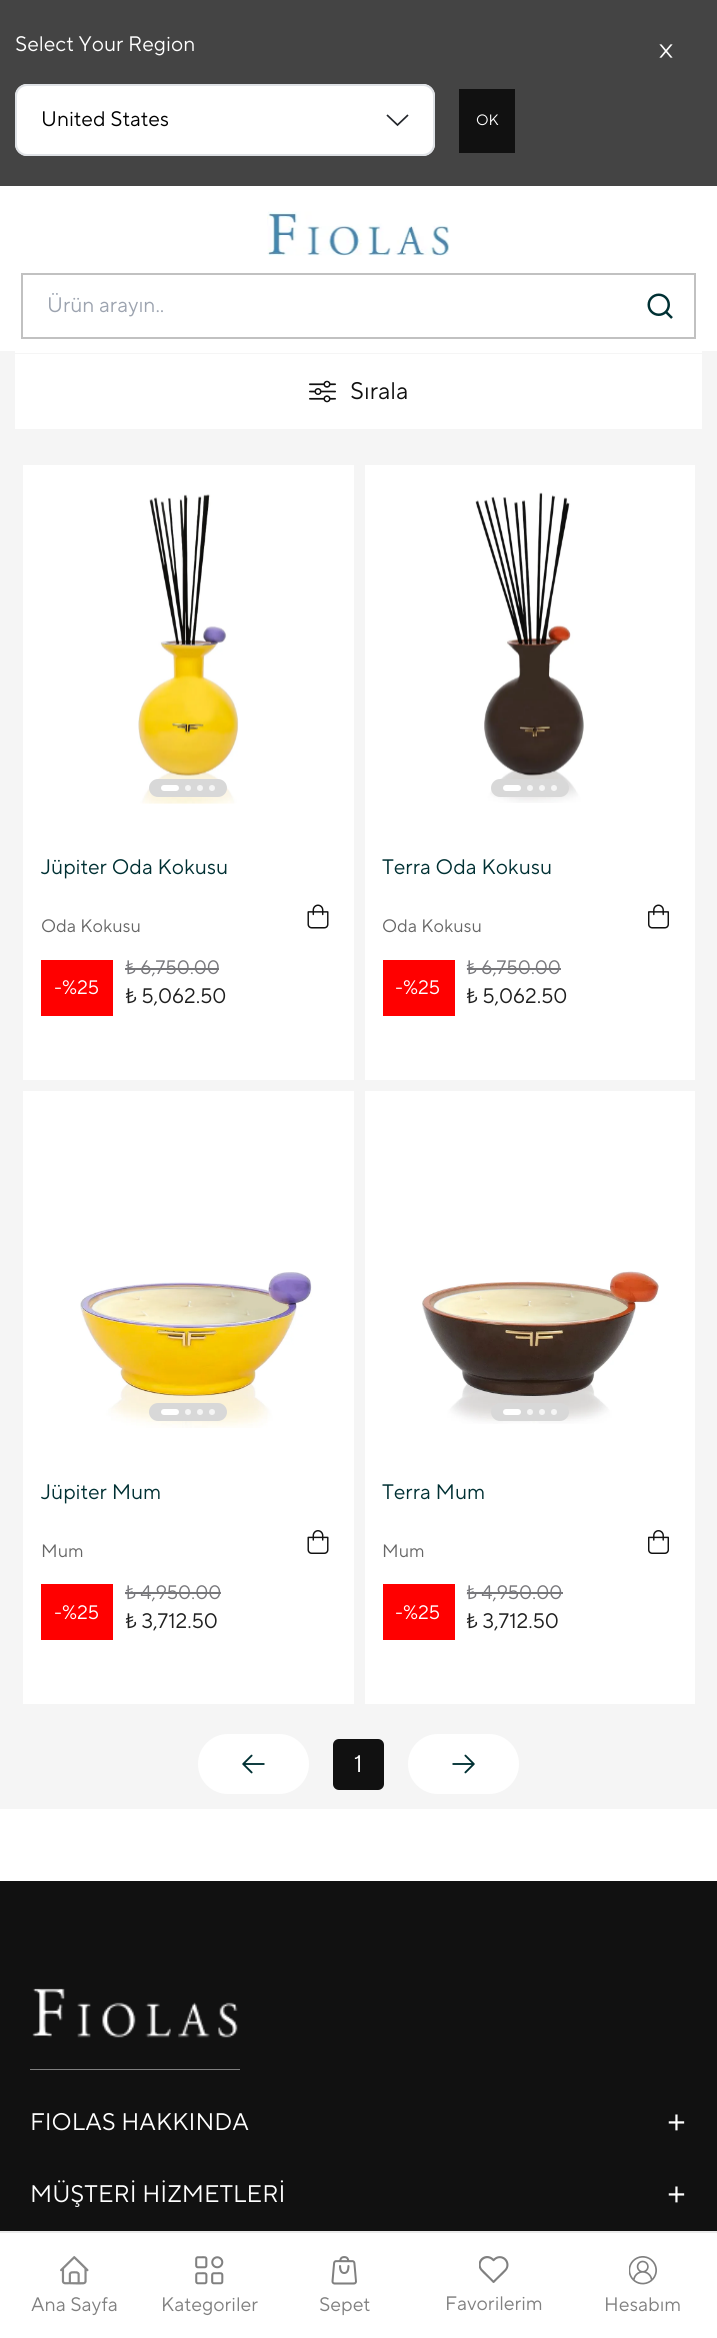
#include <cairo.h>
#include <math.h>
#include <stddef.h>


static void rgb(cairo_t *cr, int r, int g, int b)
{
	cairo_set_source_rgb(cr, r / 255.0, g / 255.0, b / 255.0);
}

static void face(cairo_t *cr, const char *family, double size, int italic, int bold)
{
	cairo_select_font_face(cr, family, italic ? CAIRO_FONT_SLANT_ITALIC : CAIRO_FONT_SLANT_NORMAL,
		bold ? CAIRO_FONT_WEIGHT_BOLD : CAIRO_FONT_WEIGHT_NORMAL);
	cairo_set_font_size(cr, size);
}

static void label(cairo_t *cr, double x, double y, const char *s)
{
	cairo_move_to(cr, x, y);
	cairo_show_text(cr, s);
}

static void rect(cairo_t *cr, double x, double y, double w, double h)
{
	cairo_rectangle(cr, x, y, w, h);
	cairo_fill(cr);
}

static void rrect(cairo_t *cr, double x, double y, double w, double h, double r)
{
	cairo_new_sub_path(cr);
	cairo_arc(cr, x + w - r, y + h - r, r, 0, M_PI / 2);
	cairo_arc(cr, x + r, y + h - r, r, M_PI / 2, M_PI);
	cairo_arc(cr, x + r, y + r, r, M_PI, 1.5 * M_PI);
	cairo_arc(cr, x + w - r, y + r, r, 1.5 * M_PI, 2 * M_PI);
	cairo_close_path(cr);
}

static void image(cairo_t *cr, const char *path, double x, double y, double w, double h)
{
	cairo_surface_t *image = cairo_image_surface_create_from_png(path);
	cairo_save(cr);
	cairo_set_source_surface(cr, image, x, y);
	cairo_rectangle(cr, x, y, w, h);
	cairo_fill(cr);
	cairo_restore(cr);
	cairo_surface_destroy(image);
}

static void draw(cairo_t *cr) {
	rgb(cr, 255, 255, 255);
	cairo_paint(cr);
	rgb(cr, 68, 68, 68);
	rect(cr, 0, 0, 717, 186);
	face(cr, "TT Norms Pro", 21, 0, 0);
	rgb(cr, 255, 255, 255);
	label(cr, 15, 51, "Select Your Region");
	image(cr, "image0.png", 659, 44, 14, 14);
	rrect(cr, 15, 84, 420, 72, 12);
	cairo_fill(cr);
	cairo_new_path(cr);
	cairo_move_to(cr, 387, 115);
	cairo_line_to(cr, 397.5, 125);
	cairo_line_to(cr, 408, 115);
	rgb(cr, 34, 37, 42);
	cairo_set_line_width(cr, 1.7);
	cairo_stroke(cr);
	rrect(cr, 16, 85, 418, 70, 11);
	rgb(cr, 223, 226, 230);
	cairo_set_line_width(cr, 2);
	cairo_stroke(cr);
	rgb(cr, 0, 0, 0);
	label(cr, 41, 126, "United States");
	rgb(cr, 17, 17, 17);
	rect(cr, 459, 89, 56, 64);
	face(cr, "TT Norms Pro", 15, 0, 0);
	rgb(cr, 255, 255, 255);
	label(cr, 476, 125, "OK");
	image(cr, "image1.png", 267, 211, 183, 45);
	image(cr, "image2.png", 647, 293, 26, 26);
	cairo_rectangle(cr, 22, 274, 673, 64);
	rgb(cr, 193, 193, 193);
	cairo_stroke(cr);
	face(cr, "TT Norms Pro", 21, 0, 0);
	rgb(cr, 156, 163, 175);
	label(cr, 47, 312, "Ürün arayın..");
	rgb(cr, 234, 234, 234);
	rect(cr, 0, 2231, 717, 2);
	image(cr, "image3.png", 60, 2256, 29, 29);
	face(cr, "TT Norms Pro", 19.5, 0, 0);
	rgb(cr, 128, 128, 128);
	label(cr, 31, 2311, "Ana Sayfa");
	image(cr, "image4.png", 195, 2256, 29, 29);
	label(cr, 161, 2311, "Kategoriler");
	image(cr, "image5.png", 331, 2256, 26, 29);
	label(cr, 319, 2311, "Sepet");
	image(cr, "image6.png", 479, 2256, 30, 27);
	label(cr, 445, 2310, "Favorilerim");
	image(cr, "image7.png", 629, 2256, 28, 29);
	label(cr, 604, 2311, "Hesabım");
	rgb(cr, 245, 245, 245);
	rect(cr, 0, 351, 717, 1458);
	rgb(cr, 255, 255, 255);
	rect(cr, 15, 351, 687, 2);
	rect(cr, 15, 354, 687, 75);
	image(cr, "image8.png", 309, 380, 27, 23);
	face(cr, "TT Norms Pro", 24, 0, 0);
	rgb(cr, 17, 17, 17);
	label(cr, 350, 399, "Sırala");
	rgb(cr, 255, 255, 255);
	rect(cr, 23, 465, 331, 615);
	image(cr, "image9.png", 138, 494, 101, 310);
	rgb(cr, 216, 216, 216);
	rrect(cr, 149, 779, 78, 18, 9);
	cairo_fill(cr);
	rgb(cr, 255, 255, 255);
	rrect(cr, 161, 785, 18, 6, 3);
	cairo_fill(cr);
	rgb(cr, 245, 245, 245);
	cairo_arc(cr, 188, 788, 3, 0, 2 * M_PI);
	cairo_fill(cr);
	cairo_arc(cr, 200, 788, 3, 0, 2 * M_PI);
	cairo_fill(cr);
	cairo_arc(cr, 212, 788, 3, 0, 2 * M_PI);
	cairo_fill(cr);
	face(cr, "TT Norms Pro", 21, 0, 0);
	rgb(cr, 0, 48, 51);
	label(cr, 41, 874, "Jüpiter Oda Kokusu");
	face(cr, "TT Norms Pro", 18, 0, 0);
	rgb(cr, 102, 102, 102);
	label(cr, 41, 932, "Oda Kokusu");
	rgb(cr, 255, 0, 0);
	rect(cr, 41, 960, 72, 56);
	face(cr, "TT Norms Pro", 19.5, 0, 0);
	rgb(cr, 255, 255, 255);
	label(cr, 54, 994, "-%25");
	rgb(cr, 119, 119, 123);
	label(cr, 125, 974, "₺ 6,750.00");
	rect(cr, 125, 968, 94, 2);
	face(cr, "TT Norms Pro", 21, 0, 0);
	rgb(cr, 31, 31, 31);
	label(cr, 125, 1003, "₺ 5,062.50");
	image(cr, "image10.png", 307, 904, 22, 25);
	rgb(cr, 255, 255, 255);
	rect(cr, 365, 465, 330, 615);
	image(cr, "image11.png", 475, 492, 109, 311);
	rgb(cr, 216, 216, 216);
	rrect(cr, 491, 779, 78, 18, 9);
	cairo_fill(cr);
	rgb(cr, 255, 255, 255);
	rrect(cr, 503, 785, 18, 6, 3);
	cairo_fill(cr);
	rgb(cr, 245, 245, 245);
	cairo_arc(cr, 530, 788, 3, 0, 2 * M_PI);
	cairo_fill(cr);
	cairo_arc(cr, 542, 788, 3, 0, 2 * M_PI);
	cairo_fill(cr);
	cairo_arc(cr, 554, 788, 3, 0, 2 * M_PI);
	cairo_fill(cr);
	rgb(cr, 0, 48, 51);
	label(cr, 382, 874, "Terra Oda Kokusu");
	face(cr, "TT Norms Pro", 18, 0, 0);
	rgb(cr, 102, 102, 102);
	label(cr, 382, 932, "Oda Kokusu");
	rgb(cr, 255, 0, 0);
	rect(cr, 383, 960, 72, 56);
	face(cr, "TT Norms Pro", 19.5, 0, 0);
	rgb(cr, 255, 255, 255);
	label(cr, 395, 994, "-%25");
	rgb(cr, 119, 119, 123);
	label(cr, 466, 974, "₺ 6,750.00");
	rect(cr, 467, 968, 94, 2);
	face(cr, "TT Norms Pro", 21, 0, 0);
	rgb(cr, 31, 31, 31);
	label(cr, 466, 1003, "₺ 5,062.50");
	image(cr, "image12.png", 648, 904, 21, 25);
	rgb(cr, 255, 255, 255);
	rect(cr, 23, 1091, 331, 613);
	image(cr, "image13.png", 80, 1272, 232, 156);
	rgb(cr, 216, 216, 216);
	rrect(cr, 149, 1403, 78, 18, 9);
	cairo_fill(cr);
	rgb(cr, 255, 255, 255);
	rrect(cr, 161, 1409, 18, 6, 3);
	cairo_fill(cr);
	rgb(cr, 245, 245, 245);
	cairo_arc(cr, 188, 1412, 3, 0, 2 * M_PI);
	cairo_fill(cr);
	cairo_arc(cr, 200, 1412, 3, 0, 2 * M_PI);
	cairo_fill(cr);
	cairo_arc(cr, 212, 1412, 3, 0, 2 * M_PI);
	cairo_fill(cr);
	rgb(cr, 0, 48, 51);
	label(cr, 41, 1499, "Jüpiter Mum");
	face(cr, "TT Norms Pro", 18, 0, 0);
	rgb(cr, 102, 102, 102);
	label(cr, 41, 1557, "Mum");
	rgb(cr, 255, 0, 0);
	rect(cr, 41, 1584, 72, 56);
	face(cr, "TT Norms Pro", 19.5, 0, 0);
	rgb(cr, 255, 255, 255);
	label(cr, 54, 1619, "-%25");
	rgb(cr, 119, 119, 123);
	label(cr, 125, 1599, "₺ 4,950.00");
	rect(cr, 125, 1592, 96, 2);
	face(cr, "TT Norms Pro", 21, 0, 0);
	rgb(cr, 31, 31, 31);
	label(cr, 125, 1628, "₺ 3,712.50");
	image(cr, "image14.png", 307, 1530, 22, 24);
	rgb(cr, 255, 255, 255);
	rect(cr, 365, 1091, 330, 613);
	image(cr, "image15.png", 422, 1271, 237, 153);
	rgb(cr, 216, 216, 216);
	rrect(cr, 491, 1403, 78, 18, 9);
	cairo_fill(cr);
	rgb(cr, 255, 255, 255);
	rrect(cr, 503, 1409, 18, 6, 3);
	cairo_fill(cr);
	rgb(cr, 245, 245, 245);
	cairo_arc(cr, 530, 1412, 3, 0, 2 * M_PI);
	cairo_fill(cr);
	cairo_arc(cr, 542, 1412, 3, 0, 2 * M_PI);
	cairo_fill(cr);
	cairo_arc(cr, 554, 1412, 3, 0, 2 * M_PI);
	cairo_fill(cr);
	rgb(cr, 0, 48, 51);
	label(cr, 382, 1499, "Terra Mum");
	face(cr, "TT Norms Pro", 18, 0, 0);
	rgb(cr, 102, 102, 102);
	label(cr, 382, 1557, "Mum");
	rgb(cr, 255, 0, 0);
	rect(cr, 383, 1584, 72, 56);
	face(cr, "TT Norms Pro", 19.5, 0, 0);
	rgb(cr, 255, 255, 255);
	label(cr, 395, 1619, "-%25");
	rgb(cr, 119, 119, 123);
	label(cr, 466, 1599, "₺ 4,950.00");
	rect(cr, 467, 1592, 96, 2);
	face(cr, "TT Norms Pro", 21, 0, 0);
	rgb(cr, 31, 31, 31);
	label(cr, 466, 1628, "₺ 3,712.50");
	image(cr, "image16.png", 648, 1530, 21, 24);
	rgb(cr, 255, 255, 255);
	rrect(cr, 198, 1734, 111, 60, 30);
	cairo_fill(cr);
	image(cr, "image17.png", 242, 1754, 23, 20);
	rgb(cr, 17, 17, 17);
	rrect(cr, 334, 1740, 49, 49, 5);
	cairo_fill_preserve(cr);
	cairo_stroke(cr);
	face(cr, "TT Norms Pro", 24, 0, 0);
	rgb(cr, 255, 255, 255);
	label(cr, 354, 1772, "1");
	rrect(cr, 408, 1734, 111, 60, 30);
	cairo_fill(cr);
	image(cr, "image18.png", 452, 1754, 23, 20);
	rgb(cr, 17, 17, 17);
	rect(cr, 0, 1881, 717, 350);
	image(cr, "image19.png", 32, 1988, 206, 50);
	rgb(cr, 127, 127, 127);
	rect(cr, 30, 2069, 210, 1);
	rgb(cr, 255, 255, 255);
	label(cr, 30, 2130, "FIOLAS HAKKINDA");
	face(cr, "TT Norms Pro", 36, 0, 0);
	label(cr, 666, 2133, "+");
	face(cr, "TT Norms Pro", 24, 0, 0);
	label(cr, 30, 2202, "MÜŞTERİ HİZMETLERİ");
	face(cr, "TT Norms Pro", 36, 0, 0);
	label(cr, 666, 2205, "+");
}

int main(void) {
	cairo_surface_t *surface = cairo_image_surface_create(CAIRO_FORMAT_RGB24, 717, 2338);
	cairo_t *cr = cairo_create(surface);
	cairo_font_options_t *options = cairo_font_options_create();
	cairo_font_options_set_hint_metrics(options, CAIRO_HINT_METRICS_OFF);
	cairo_font_options_set_hint_style(options, CAIRO_HINT_STYLE_NONE);
	cairo_set_font_options(cr, options);
	cairo_set_miter_limit(cr, 4);
	draw(cr);
	cairo_surface_write_to_png(surface, "render.png");
	cairo_font_options_destroy(options);
	cairo_destroy(cr);
	cairo_surface_destroy(surface);
	return 0;
}
